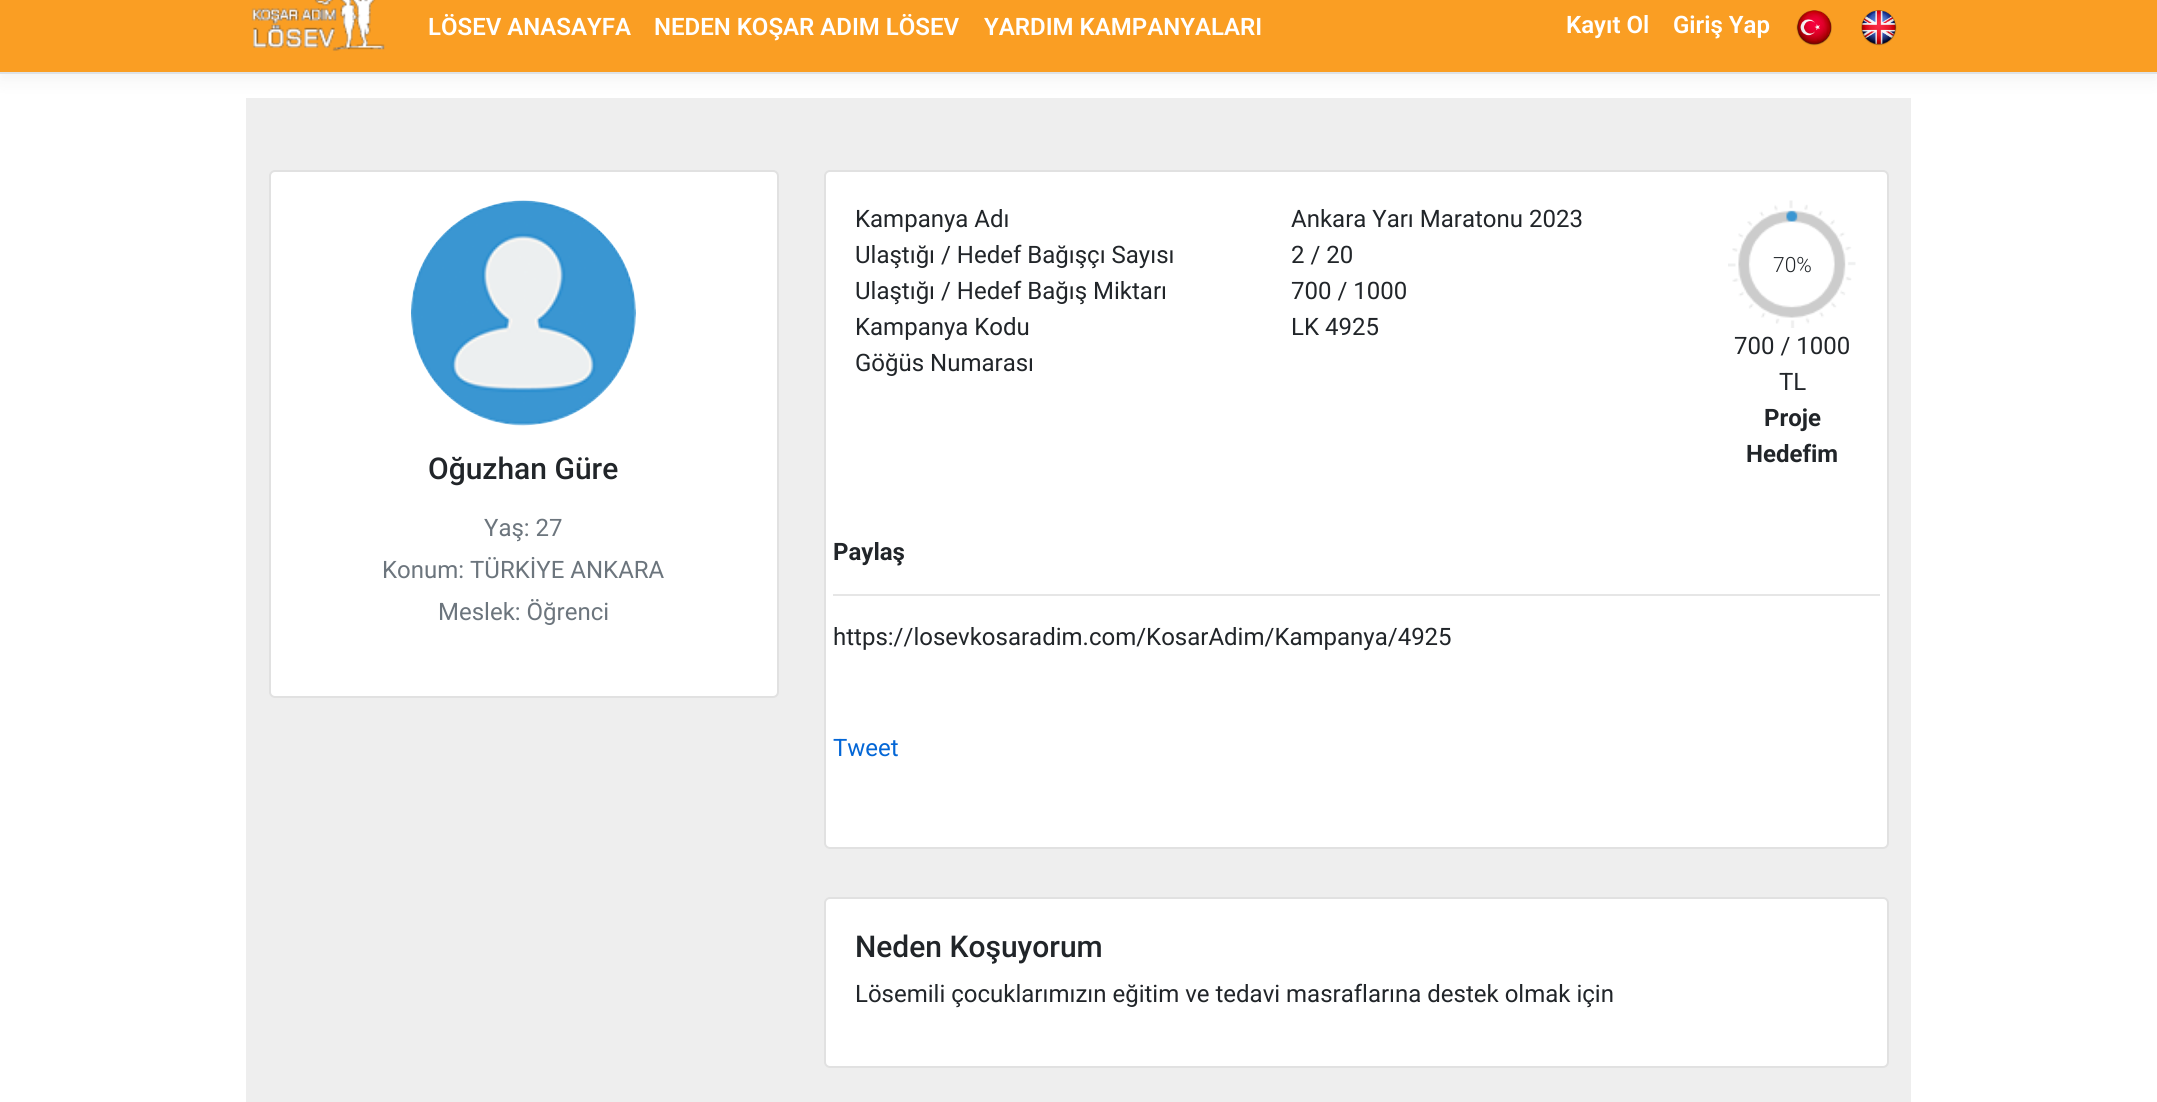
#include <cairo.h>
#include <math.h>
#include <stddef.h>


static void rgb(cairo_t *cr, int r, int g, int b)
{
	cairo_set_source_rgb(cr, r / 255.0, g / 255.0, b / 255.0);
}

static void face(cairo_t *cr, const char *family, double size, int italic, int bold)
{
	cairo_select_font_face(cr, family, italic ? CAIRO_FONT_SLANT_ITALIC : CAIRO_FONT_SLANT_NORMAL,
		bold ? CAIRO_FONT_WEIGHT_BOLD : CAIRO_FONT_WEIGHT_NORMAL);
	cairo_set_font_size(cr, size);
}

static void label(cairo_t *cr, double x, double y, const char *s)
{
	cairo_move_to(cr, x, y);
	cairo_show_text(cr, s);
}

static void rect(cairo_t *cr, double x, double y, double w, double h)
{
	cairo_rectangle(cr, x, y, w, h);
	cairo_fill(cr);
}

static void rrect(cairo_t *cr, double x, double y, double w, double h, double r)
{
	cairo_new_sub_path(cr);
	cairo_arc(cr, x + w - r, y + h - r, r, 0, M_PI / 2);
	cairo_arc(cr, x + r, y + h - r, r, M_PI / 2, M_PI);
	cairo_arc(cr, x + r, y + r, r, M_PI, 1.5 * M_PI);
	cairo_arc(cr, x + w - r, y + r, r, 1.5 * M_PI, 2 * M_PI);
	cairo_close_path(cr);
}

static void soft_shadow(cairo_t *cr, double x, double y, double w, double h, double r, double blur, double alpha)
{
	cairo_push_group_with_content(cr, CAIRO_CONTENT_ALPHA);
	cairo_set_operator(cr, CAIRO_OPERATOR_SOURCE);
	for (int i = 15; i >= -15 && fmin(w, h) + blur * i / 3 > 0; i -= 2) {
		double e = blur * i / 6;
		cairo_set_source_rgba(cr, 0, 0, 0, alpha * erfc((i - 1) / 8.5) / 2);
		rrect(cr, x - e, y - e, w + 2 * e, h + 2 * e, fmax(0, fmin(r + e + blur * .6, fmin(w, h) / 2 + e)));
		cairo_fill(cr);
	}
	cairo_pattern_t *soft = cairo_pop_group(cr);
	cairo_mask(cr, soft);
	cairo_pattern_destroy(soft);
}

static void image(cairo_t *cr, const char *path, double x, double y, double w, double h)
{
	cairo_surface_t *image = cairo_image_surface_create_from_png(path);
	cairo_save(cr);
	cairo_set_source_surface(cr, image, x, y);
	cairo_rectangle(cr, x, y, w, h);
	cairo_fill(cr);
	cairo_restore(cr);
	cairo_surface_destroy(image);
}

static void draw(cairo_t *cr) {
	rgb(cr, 255, 255, 255);
	cairo_paint(cr);
	rgb(cr, 238, 238, 238);
	rect(cr, 246, 98, 1665, 1004);
	rgb(cr, 0, 0, 0);
	soft_shadow(cr, 0, -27, 2157, 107, 0, 9, 0.05);
	rgb(cr, 250, 158, 35);
	rect(cr, 0, 0, 2157, 72);
	rgb(cr, 222, 226, 230);
	rect(cr, 0, 72, 2157, 2);
	image(cr, "image0.png", 251, 0, 134, 51);
	face(cr, "Roboto SemiBold", 24, 0, 0);
	rgb(cr, 255, 255, 255);
	label(cr, 428, 35, "LÖSEV ANASAYFA");
	label(cr, 654, 35, "NEDEN KOŞAR ADIM LÖSEV");
	label(cr, 984, 35, "YARDIM KAMPANYALARI");
	label(cr, 1566, 33, "Kayıt Ol");
	label(cr, 1673, 33, "Giriş Yap");
	image(cr, "image1.png", 1796, 10, 36, 36);
	image(cr, "image2.png", 1861, 10, 36, 36);
	rrect(cr, 269, 170, 510, 528, 6);
	cairo_fill(cr);
	rrect(cr, 270, 171, 508, 526, 5);
	cairo_set_source_rgba(cr, 0, 0, 0, 0.12);
	cairo_stroke(cr);
	image(cr, "image3.png", 411, 200, 225, 226);
	face(cr, "Roboto Medium", 30, 0, 0);
	rgb(cr, 33, 37, 41);
	label(cr, 428, 479, "Oğuzhan Güre");
	face(cr, "Roboto", 24, 0, 0);
	rgb(cr, 108, 117, 125);
	label(cr, 484, 536, "Yaş: 27");
	label(cr, 382, 578, "Konum: TÜRKİYE ANKARA");
	label(cr, 438, 620, "Meslek: Öğrenci");
	rgb(cr, 255, 255, 255);
	rrect(cr, 824, 170, 1065, 679, 6);
	cairo_fill(cr);
	rrect(cr, 825, 171, 1063, 677, 5);
	cairo_set_source_rgba(cr, 0, 0, 0, 0.12);
	cairo_stroke(cr);
	rgb(cr, 33, 37, 41);
	label(cr, 855, 227, "Kampanya Adı");
	label(cr, 1291, 227, "Ankara Yarı Maratonu 2023");
	label(cr, 855, 263, "Ulaştığı / Hedef Bağışçı Sayısı");
	label(cr, 1291, 263, "2 / 20");
	label(cr, 855, 299, "Ulaştığı / Hedef Bağış Miktarı");
	label(cr, 1291, 299, "700 / 1000");
	label(cr, 855, 335, "Kampanya Kodu");
	label(cr, 1291, 335, "LK 4925");
	label(cr, 855, 371, "Göğüs Numarası");
	face(cr, "Roboto Light", 21, 0, 0);
	label(cr, 1773, 272, "70%");
	image(cr, "image4.png", 1728, 200, 128, 128);
	face(cr, "Roboto", 24, 0, 0);
	label(cr, 1734, 354, "700 / 1000");
	label(cr, 1779, 390, "TL");
	face(cr, "Roboto", 24, 0, 1);
	label(cr, 1764, 426, "Proje");
	label(cr, 1746, 462, "Hedefim");
	label(cr, 833, 560, "Paylaş");
	rgb(cr, 230, 230, 230);
	rect(cr, 833, 594, 1047, 2);
	face(cr, "Roboto", 24, 0, 0);
	rgb(cr, 33, 37, 41);
	label(cr, 833, 645, "https://losevkosaradim.com/KosarAdim/Kampanya/4925");
	rgb(cr, 3, 102, 214);
	label(cr, 833, 756, "Tweet");
	rgb(cr, 255, 255, 255);
	rrect(cr, 824, 897, 1065, 171, 6);
	cairo_fill(cr);
	rrect(cr, 825, 898, 1063, 169, 5);
	cairo_set_source_rgba(cr, 0, 0, 0, 0.12);
	cairo_stroke(cr);
	face(cr, "Roboto Medium", 30, 0, 0);
	rgb(cr, 33, 37, 41);
	label(cr, 855, 957, "Neden Koşuyorum");
	face(cr, "Roboto", 24, 0, 0);
	label(cr, 855, 1002, "Lösemili çocuklarımızın eğitim ve tedavi masraflarına destek olmak için");
}

int main(void) {
	cairo_surface_t *surface = cairo_image_surface_create(CAIRO_FORMAT_RGB24, 2157, 1102);
	cairo_t *cr = cairo_create(surface);
	cairo_font_options_t *options = cairo_font_options_create();
	cairo_font_options_set_hint_metrics(options, CAIRO_HINT_METRICS_OFF);
	cairo_font_options_set_hint_style(options, CAIRO_HINT_STYLE_NONE);
	cairo_set_font_options(cr, options);
	cairo_set_miter_limit(cr, 4);
	draw(cr);
	cairo_surface_write_to_png(surface, "render.png");
	cairo_font_options_destroy(options);
	cairo_destroy(cr);
	cairo_surface_destroy(surface);
	return 0;
}
